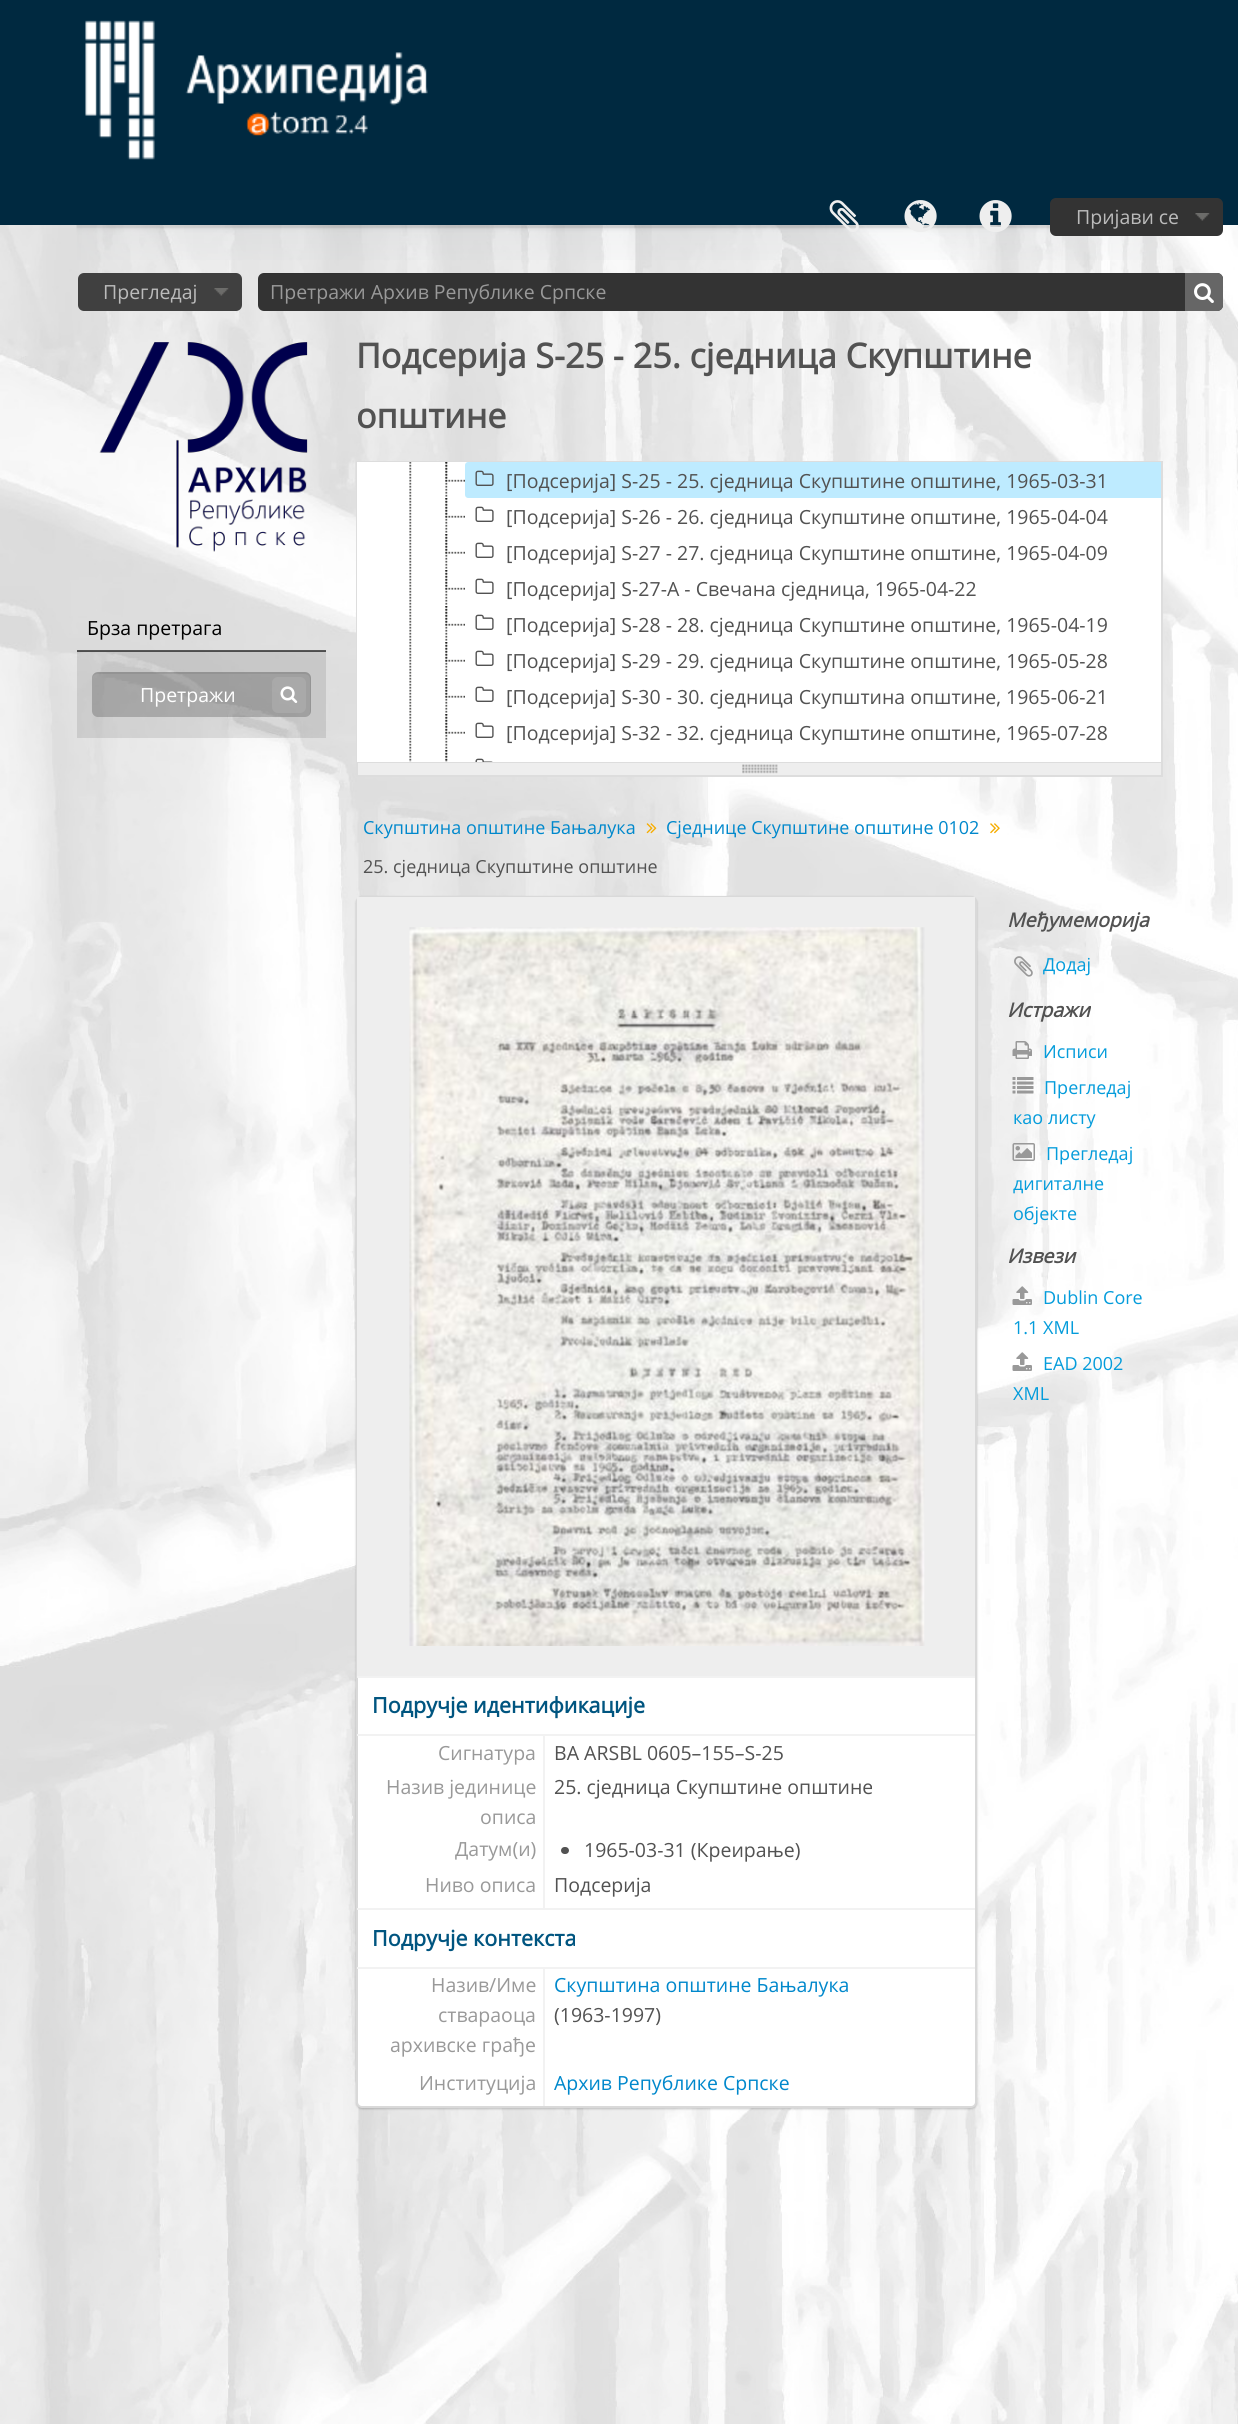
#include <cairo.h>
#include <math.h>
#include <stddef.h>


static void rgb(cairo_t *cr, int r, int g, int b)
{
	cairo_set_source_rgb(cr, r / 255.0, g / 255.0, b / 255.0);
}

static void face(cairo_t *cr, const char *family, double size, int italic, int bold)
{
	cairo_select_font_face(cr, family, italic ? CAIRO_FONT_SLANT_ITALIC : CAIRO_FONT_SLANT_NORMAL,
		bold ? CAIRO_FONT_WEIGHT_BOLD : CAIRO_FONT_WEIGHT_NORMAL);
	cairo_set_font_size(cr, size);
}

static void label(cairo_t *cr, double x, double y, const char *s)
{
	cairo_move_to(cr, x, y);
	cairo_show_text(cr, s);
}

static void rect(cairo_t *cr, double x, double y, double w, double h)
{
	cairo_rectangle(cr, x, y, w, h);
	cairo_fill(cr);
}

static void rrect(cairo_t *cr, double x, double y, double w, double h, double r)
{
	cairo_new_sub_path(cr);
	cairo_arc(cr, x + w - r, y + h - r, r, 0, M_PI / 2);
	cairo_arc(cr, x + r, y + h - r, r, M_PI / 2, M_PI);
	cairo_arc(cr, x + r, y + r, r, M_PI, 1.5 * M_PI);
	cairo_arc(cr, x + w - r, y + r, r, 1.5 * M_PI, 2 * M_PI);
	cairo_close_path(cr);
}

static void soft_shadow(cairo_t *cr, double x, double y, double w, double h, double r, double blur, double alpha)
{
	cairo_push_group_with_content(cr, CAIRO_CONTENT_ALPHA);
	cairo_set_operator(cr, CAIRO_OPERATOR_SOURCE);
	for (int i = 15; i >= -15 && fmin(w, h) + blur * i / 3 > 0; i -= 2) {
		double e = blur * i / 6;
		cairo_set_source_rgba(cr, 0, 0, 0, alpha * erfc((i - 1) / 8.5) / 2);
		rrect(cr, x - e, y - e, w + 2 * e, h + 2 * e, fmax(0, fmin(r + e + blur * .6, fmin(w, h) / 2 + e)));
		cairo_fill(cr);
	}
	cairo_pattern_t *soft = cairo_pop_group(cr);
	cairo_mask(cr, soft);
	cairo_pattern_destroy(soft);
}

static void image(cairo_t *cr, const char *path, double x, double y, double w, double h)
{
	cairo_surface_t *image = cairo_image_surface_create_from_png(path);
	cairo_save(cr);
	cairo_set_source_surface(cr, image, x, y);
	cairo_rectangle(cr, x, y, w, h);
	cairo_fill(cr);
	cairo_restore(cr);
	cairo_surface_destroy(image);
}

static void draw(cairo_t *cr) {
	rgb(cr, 255, 255, 255);
	cairo_paint(cr);
	image(cr, "image0.png", 0, 225, 1238, 2199);
	rgb(cr, 0, 41, 64);
	rect(cr, 0, 0, 1238, 225);
	image(cr, "image1.png", 85, 20, 343, 140);
	image(cr, "image8.png", 76, 225, 1086, 35);
	image(cr, "image2.png", 829, 200, 30, 32);
	image(cr, "image3.png", 904, 200, 33, 32);
	image(cr, "image4.png", 979, 200, 33, 32);
	rgb(cr, 51, 51, 51);
	rrect(cr, 1050, 198, 173, 38, 6);
	cairo_fill(cr);
	image(cr, "image5.png", 1195, 213, 15, 8);
	face(cr, "Open Sans", 19.5, 0, 0);
	rgb(cr, 187, 187, 187);
	label(cr, 1076, 224, "Пријави се");
	rgb(cr, 64, 64, 64);
	rrect(cr, 78, 273, 164, 38, 6);
	cairo_fill(cr);
	image(cr, "image6.png", 214, 288, 15, 8);
	rgb(cr, 187, 187, 187);
	label(cr, 103, 299, "Прегледај");
	rgb(cr, 51, 51, 51);
	rrect(cr, 258, 273, 965, 38, 6);
	cairo_fill(cr);
	cairo_set_source_rgba(cr, 0, 0, 0, 0.07);
	cairo_new_path(cr);
	cairo_move_to(cr, 264, 274);
	cairo_line_to(cr, 1216, 274);
	cairo_curve_to(cr, 1220, 274, 1222, 277, 1222, 280);
	cairo_line_to(cr, 1222, 306);
	cairo_curve_to(cr, 1222, 307, 1222, 308, 1221, 309);
	cairo_curve_to(cr, 1222, 308, 1223, 307, 1223, 305);
	cairo_line_to(cr, 1223, 279);
	cairo_curve_to(cr, 1223, 276, 1220, 273, 1217, 273);
	cairo_line_to(cr, 264, 273);
	cairo_curve_to(cr, 261, 273, 258, 276, 258, 279);
	cairo_line_to(cr, 258, 280);
	cairo_curve_to(cr, 258, 277, 261, 274, 264, 274);
	cairo_close_path(cr);
	cairo_fill(cr);
	rgb(cr, 153, 153, 153);
	label(cr, 270, 299, "Претражи Архив Републике Српске");
	rgb(cr, 102, 102, 102);
	cairo_new_path(cr);
	cairo_move_to(cr, 1185, 273);
	cairo_line_to(cr, 1217, 273);
	cairo_curve_to(cr, 1220.5, 273, 1223, 275.5, 1223, 279);
	cairo_line_to(cr, 1223, 305);
	cairo_curve_to(cr, 1223, 308.5, 1220.5, 311, 1217, 311);
	cairo_line_to(cr, 1185, 311);
	cairo_close_path(cr);
	cairo_fill(cr);
	image(cr, "image7.png", 1194, 283, 20, 20);
	image(cr, "image9.png", 99, 342, 209, 210);
	rgb(cr, 85, 85, 85);
	rect(cr, 77, 650, 249, 2);
	rgb(cr, 0, 0, 0);
	label(cr, 87, 635, "Брза претрага");
	cairo_set_source_rgba(cr, 0, 0, 0, 0.1);
	rect(cr, 77, 651, 249, 87);
	cairo_set_source_rgba(cr, 0, 0, 0, 0.2);
	rrect(cr, 92, 672, 219, 45, 6);
	cairo_fill(cr);
	cairo_set_source_rgba(cr, 0, 0, 0, 0.07);
	cairo_new_path(cr);
	cairo_move_to(cr, 98, 674);
	cairo_line_to(cr, 304, 674);
	cairo_curve_to(cr, 308, 674, 310, 676, 310, 680);
	cairo_line_to(cr, 310, 712);
	cairo_line_to(cr, 309, 715);
	cairo_curve_to(cr, 310, 714, 311, 713, 311, 711);
	cairo_line_to(cr, 311, 678);
	cairo_curve_to(cr, 311, 675, 308, 672, 305, 672);
	cairo_line_to(cr, 98, 672);
	cairo_curve_to(cr, 95, 672, 92, 675, 92, 678);
	cairo_line_to(cr, 92, 680);
	cairo_curve_to(cr, 92, 676, 94, 674, 98, 674);
	cairo_close_path(cr);
	cairo_fill(cr);
	rgb(cr, 255, 255, 255);
	label(cr, 140, 702, "Претражи");
	cairo_set_source_rgba(cr, 1, 1, 1, 0.1);
	rrect(cr, 272, 677, 34, 36, 6);
	cairo_fill(cr);
	image(cr, "image10.png", 280, 686, 18, 17);
	face(cr, "Open Sans", 34.1, 0, 1);
	rgb(cr, 82, 82, 82);
	label(cr, 356, 368, "Подсерија S-25 - 25. сједница Скупштине");
	label(cr, 356, 428, "општине");
	cairo_rectangle(cr, 357, 462, 805, 301);
	rgb(cr, 221, 221, 221);
	cairo_stroke(cr);
	rgb(cr, 238, 238, 238);
	rect(cr, 358, 763, 803, 12);
	image(cr, "image19.png", 742, 764, 36, 10);
	cairo_rectangle(cr, 357, 762, 805, 14);
	rgb(cr, 221, 221, 221);
	cairo_stroke(cr);
	rgb(cr, 255, 255, 255);
	rect(cr, 357, 462, 804, 300);
	image(cr, "image11.png", 409, 462, 3, 300);
	image(cr, "image12.png", 445, 462, 3, 35);
	image(cr, "image13.png", 445, 462, 20, 20);
	rgb(cr, 190, 235, 255);
	cairo_new_path(cr);
	cairo_move_to(cr, 468, 462);
	cairo_line_to(cr, 1161, 462);
	cairo_line_to(cr, 1161, 498);
	cairo_line_to(cr, 468, 498);
	cairo_curve_to(cr, 466.5, 498, 465, 496.5, 465, 495);
	cairo_line_to(cr, 465, 465);
	cairo_curve_to(cr, 465, 463.5, 466.5, 462, 468, 462);
	cairo_close_path(cr);
	cairo_fill(cr);
	image(cr, "image14.png", 475, 470, 19, 16);
	face(cr, "Open Sans", 19.5, 0, 0);
	rgb(cr, 82, 82, 82);
	label(cr, 506, 488, "[Подсерија] S-25 - 25. сједница Скупштине општине, 1965-03-31");
	image(cr, "image12.png", 445, 498, 3, 35);
	image(cr, "image13.png", 445, 498, 20, 20);
	image(cr, "image15.png", 475, 506, 19, 16);
	label(cr, 506, 524, "[Подсерија] S-26 - 26. сједница Скупштине општине, 1965-04-04");
	image(cr, "image12.png", 445, 534, 3, 35);
	image(cr, "image13.png", 445, 534, 20, 20);
	image(cr, "image15.png", 475, 542, 19, 16);
	label(cr, 506, 560, "[Подсерија] S-27 - 27. сједница Скупштине општине, 1965-04-09");
	image(cr, "image12.png", 445, 570, 3, 35);
	image(cr, "image13.png", 445, 570, 20, 20);
	image(cr, "image15.png", 475, 578, 19, 16);
	label(cr, 506, 596, "[Подсерија] S-27-A - Свечана сједница, 1965-04-22");
	image(cr, "image12.png", 445, 606, 3, 35);
	image(cr, "image13.png", 445, 606, 20, 20);
	image(cr, "image15.png", 475, 614, 19, 16);
	label(cr, 506, 632, "[Подсерија] S-28 - 28. сједница Скупштине општине, 1965-04-19");
	image(cr, "image12.png", 445, 642, 3, 35);
	image(cr, "image13.png", 445, 642, 20, 20);
	image(cr, "image15.png", 475, 650, 19, 16);
	label(cr, 506, 668, "[Подсерија] S-29 - 29. сједница Скупштине општине, 1965-05-28");
	image(cr, "image12.png", 445, 678, 3, 35);
	image(cr, "image13.png", 445, 678, 20, 20);
	image(cr, "image15.png", 475, 686, 19, 16);
	label(cr, 506, 704, "[Подсерија] S-30 - 30. сједница Скупштина општине, 1965-06-21");
	image(cr, "image12.png", 445, 714, 3, 35);
	image(cr, "image13.png", 445, 714, 20, 20);
	image(cr, "image15.png", 475, 722, 19, 16);
	label(cr, 506, 740, "[Подсерија] S-32 - 32. сједница Скупштине општине, 1965-07-28");
	image(cr, "image16.png", 445, 750, 3, 12);
	image(cr, "image17.png", 445, 750, 3, 12);
	image(cr, "image18.png", 475, 758, 18, 4);
	face(cr, "Open Sans", 18, 0, 0);
	rgb(cr, 0, 136, 204);
	label(cr, 363, 834, "Скупштина општине Бањалука");
	image(cr, "image20.png", 646, 823, 11, 11);
	label(cr, 666, 834, "Сједнице Скупштине општине 0102");
	image(cr, "image21.png", 990, 823, 10, 11);
	rgb(cr, 82, 82, 82);
	label(cr, 363, 873, "25. сједница Скупштине општине");
	face(cr, "Open Sans", 19.5, 1, 1);
	label(cr, 1007, 927, "Међумеморија");
	image(cr, "image22.png", 1014, 956, 19, 21);
	face(cr, "Open Sans", 18, 0, 0);
	rgb(cr, 4, 156, 219);
	label(cr, 1043, 971, "Додај");
	face(cr, "Open Sans", 19.5, 1, 1);
	rgb(cr, 82, 82, 82);
	label(cr, 1007, 1017, "Истражи");
	image(cr, "image23.png", 1012, 1041, 20, 18);
	face(cr, "Open Sans", 18, 0, 0);
	rgb(cr, 4, 156, 219);
	label(cr, 1043, 1058, "Исписи");
	image(cr, "image24.png", 1012, 1077, 22, 17);
	label(cr, 1044, 1094, "Прегледај");
	label(cr, 1013, 1124, "као листу");
	image(cr, "image25.png", 1012, 1143, 23, 18);
	label(cr, 1046, 1160, "Прегледај");
	label(cr, 1013, 1190, "дигиталне");
	label(cr, 1013, 1220, "објекте");
	face(cr, "Open Sans", 19.5, 1, 1);
	rgb(cr, 82, 82, 82);
	label(cr, 1007, 1263, "Извези");
	image(cr, "image26.png", 1012, 1286, 20, 19);
	face(cr, "Open Sans", 18, 0, 0);
	rgb(cr, 4, 156, 219);
	label(cr, 1043, 1304, "Dublin Core");
	label(cr, 1013, 1334, "1.1 XML");
	image(cr, "image27.png", 1012, 1352, 20, 19);
	label(cr, 1043, 1370, "EAD 2002");
	label(cr, 1013, 1400, "XML");
	rgb(cr, 0, 0, 0);
	soft_shadow(cr, 356, 897, 621, 1212, 6, 1, 0.2);
	rgb(cr, 255, 255, 255);
	rrect(cr, 357, 897, 619, 1210, 5);
	cairo_fill_preserve(cr);
	rgb(cr, 217, 217, 217);
	cairo_stroke(cr);
	rgb(cr, 238, 238, 238);
	rect(cr, 357, 897, 618, 779);
	image(cr, "image28.png", 409, 927, 516, 719);
	rgb(cr, 242, 242, 242);
	rect(cr, 357, 1676, 618, 2);
	rect(cr, 357, 1734, 618, 2);
	face(cr, "Open Sans", 21.5, 0, 1);
	rgb(cr, 0, 85, 128);
	label(cr, 372, 1713, "Подручје идентификације");
	rgb(cr, 242, 242, 242);
	rect(cr, 543, 1736, 2, 172);
	face(cr, "Open Sans", 19.5, 0, 0);
	rgb(cr, 153, 153, 153);
	label(cr, 438, 1760, "Сигнатура");
	rgb(cr, 82, 82, 82);
	label(cr, 554, 1760, "BA ARSBL 0605–155–S-25");
	rgb(cr, 153, 153, 153);
	label(cr, 386, 1794, "Назив јединице");
	label(cr, 480, 1824, "описа");
	rgb(cr, 82, 82, 82);
	label(cr, 554, 1794, "25. сједница Скупштине општине");
	rgb(cr, 153, 153, 153);
	label(cr, 455, 1856, "Датум(и)");
	rgb(cr, 82, 82, 82);
	rrect(cr, 561, 1847, 8, 7, 3.5);
	cairo_fill(cr);
	label(cr, 584, 1857, "1965-03-31 (Креирање)");
	rgb(cr, 153, 153, 153);
	label(cr, 425, 1892, "Ниво описа");
	rgb(cr, 82, 82, 82);
	label(cr, 554, 1892, "Подсерија");
	rgb(cr, 242, 242, 242);
	rect(cr, 357, 1908, 618, 2);
	rect(cr, 357, 1967, 618, 2);
	face(cr, "Open Sans", 21.5, 0, 1);
	rgb(cr, 0, 85, 128);
	label(cr, 372, 1946, "Подручје контекста");
	rgb(cr, 242, 242, 242);
	rect(cr, 543, 1968, 2, 138);
	face(cr, "Open Sans", 19.5, 0, 0);
	rgb(cr, 153, 153, 153);
	label(cr, 431, 1992, "Назив/Име");
	label(cr, 438, 2022, "ствараоца");
	label(cr, 390, 2052, "архивске грађе");
	rgb(cr, 0, 136, 204);
	label(cr, 554, 1992, "Скупштина општине Бањалука");
	rgb(cr, 82, 82, 82);
	label(cr, 554, 2022, "(1963-1997)");
	rgb(cr, 153, 153, 153);
	label(cr, 419, 2090, "Институција");
	rgb(cr, 0, 136, 204);
	label(cr, 554, 2090, "Архив Републике Српске");
}

int main(void) {
	cairo_surface_t *surface = cairo_image_surface_create(CAIRO_FORMAT_RGB24, 1238, 2424);
	cairo_t *cr = cairo_create(surface);
	cairo_font_options_t *options = cairo_font_options_create();
	cairo_font_options_set_hint_metrics(options, CAIRO_HINT_METRICS_OFF);
	cairo_font_options_set_hint_style(options, CAIRO_HINT_STYLE_NONE);
	cairo_set_font_options(cr, options);
	cairo_set_miter_limit(cr, 4);
	draw(cr);
	cairo_surface_write_to_png(surface, "render.png");
	cairo_font_options_destroy(options);
	cairo_destroy(cr);
	cairo_surface_destroy(surface);
	return 0;
}
